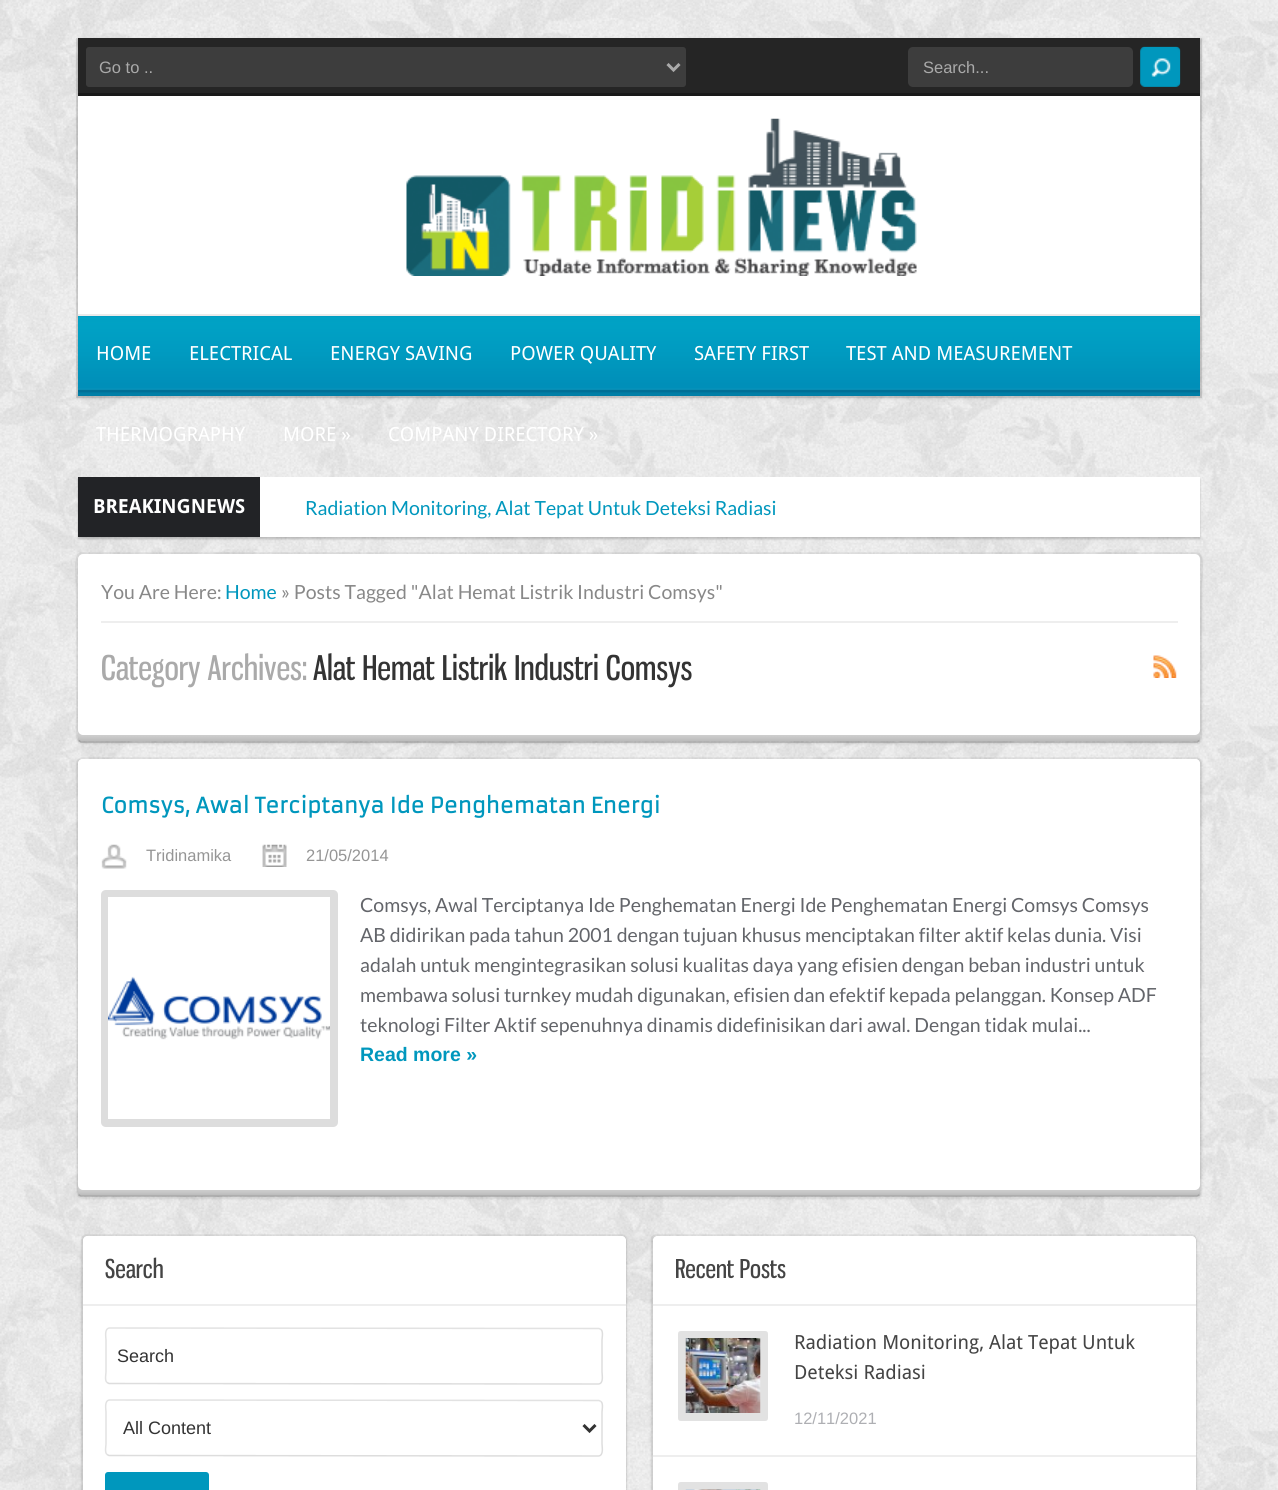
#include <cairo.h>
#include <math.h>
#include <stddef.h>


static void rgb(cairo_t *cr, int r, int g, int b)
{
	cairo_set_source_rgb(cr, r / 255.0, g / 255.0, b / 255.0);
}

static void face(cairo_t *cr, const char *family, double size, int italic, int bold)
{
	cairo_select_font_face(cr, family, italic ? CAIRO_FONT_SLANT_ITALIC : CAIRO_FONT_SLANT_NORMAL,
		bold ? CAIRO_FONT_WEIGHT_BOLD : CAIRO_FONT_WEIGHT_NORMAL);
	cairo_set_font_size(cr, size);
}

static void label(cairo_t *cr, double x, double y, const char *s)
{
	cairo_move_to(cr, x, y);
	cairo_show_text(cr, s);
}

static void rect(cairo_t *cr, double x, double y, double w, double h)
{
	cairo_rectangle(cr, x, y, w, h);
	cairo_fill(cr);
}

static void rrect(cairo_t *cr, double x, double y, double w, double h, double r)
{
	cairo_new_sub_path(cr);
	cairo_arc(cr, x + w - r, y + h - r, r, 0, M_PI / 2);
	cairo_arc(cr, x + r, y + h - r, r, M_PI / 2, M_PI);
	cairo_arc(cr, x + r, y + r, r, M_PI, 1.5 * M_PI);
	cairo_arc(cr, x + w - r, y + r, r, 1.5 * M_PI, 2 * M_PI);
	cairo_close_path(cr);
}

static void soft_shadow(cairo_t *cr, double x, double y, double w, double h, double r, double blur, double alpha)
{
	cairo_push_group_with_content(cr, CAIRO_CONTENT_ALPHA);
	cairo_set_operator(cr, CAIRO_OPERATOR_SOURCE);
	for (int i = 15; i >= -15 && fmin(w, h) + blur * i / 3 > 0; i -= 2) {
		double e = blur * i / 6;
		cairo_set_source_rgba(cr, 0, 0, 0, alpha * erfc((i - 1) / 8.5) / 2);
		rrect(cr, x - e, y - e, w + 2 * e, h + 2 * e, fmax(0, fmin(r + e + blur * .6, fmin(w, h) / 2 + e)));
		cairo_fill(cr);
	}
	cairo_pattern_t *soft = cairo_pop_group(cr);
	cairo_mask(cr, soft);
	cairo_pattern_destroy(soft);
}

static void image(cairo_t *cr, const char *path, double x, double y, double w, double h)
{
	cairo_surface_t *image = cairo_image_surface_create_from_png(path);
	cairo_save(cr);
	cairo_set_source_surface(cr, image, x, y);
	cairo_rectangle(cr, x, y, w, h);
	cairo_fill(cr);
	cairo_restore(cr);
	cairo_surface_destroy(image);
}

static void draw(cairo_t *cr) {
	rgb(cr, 255, 255, 255);
	cairo_paint(cr);
	image(cr, "image0.png", 0, 0, 1278, 1490);
	rgb(cr, 0, 0, 0);
	soft_shadow(cr, 77, 39, 1125, 360, 0, 1, 0.1);
	rgb(cr, 255, 255, 255);
	rect(cr, 78, 96, 1122, 218);
	cairo_set_source_rgba(cr, 0, 0, 0, 0.1);
	cairo_new_path(cr);
	cairo_move_to(cr, 1202, 38);
	cairo_line_to(cr, 1202, 398);
	cairo_line_to(cr, 1200, 396);
	cairo_line_to(cr, 1200, 38);
	cairo_close_path(cr);
	cairo_fill(cr);
	cairo_new_path(cr);
	cairo_move_to(cr, 1202, 398);
	cairo_line_to(cr, 76, 398);
	cairo_line_to(cr, 78, 396);
	cairo_line_to(cr, 1200, 396);
	cairo_close_path(cr);
	cairo_fill(cr);
	cairo_new_path(cr);
	cairo_move_to(cr, 76, 398);
	cairo_line_to(cr, 76, 38);
	cairo_line_to(cr, 78, 38);
	cairo_line_to(cr, 78, 396);
	cairo_close_path(cr);
	cairo_fill(cr);
	rgb(cr, 37, 37, 37);
	rect(cr, 78, 38, 1122, 55);
	rgb(cr, 25, 25, 25);
	rect(cr, 78, 93, 1122, 3);
	rgb(cr, 61, 61, 61);
	rrect(cr, 86, 47, 600, 40, 3);
	cairo_fill(cr);
	cairo_new_path(cr);
	cairo_move_to(cr, 667.5, 64);
	cairo_line_to(cr, 673.5, 70);
	cairo_line_to(cr, 679.5, 64);
	rgb(cr, 170, 170, 170);
	cairo_set_line_width(cr, 3);
	cairo_stroke(cr);
	face(cr, "Liberation Sans", 16.5, 0, 0);
	label(cr, 99, 73, "Go to ..");
	rgb(cr, 61, 61, 61);
	rrect(cr, 908, 47, 225, 40, 5);
	cairo_fill(cr);
	rgb(cr, 170, 170, 170);
	label(cr, 923, 73, "Search...");
	image(cr, "image1.png", 1140, 46, 41, 41);
	image(cr, "image2.png", 406, 118, 511, 158);
	image(cr, "image3.png", 78, 316, 1122, 80);
	rgb(cr, 234, 234, 234);
	rect(cr, 78, 314, 1122, 2);
	face(cr, "Droid Sans", 19.5, 0, 0);
	rgb(cr, 255, 255, 255);
	label(cr, 96, 360, "HOME");
	label(cr, 189, 360, "ELECTRICAL");
	label(cr, 330, 360, "ENERGY SAVING");
	label(cr, 510, 360, "POWER QUALITY");
	label(cr, 694, 360, "SAFETY FIRST");
	label(cr, 846, 360, "TEST AND MEASUREMENT");
	label(cr, 96, 441, "THERMOGRAPHY");
	label(cr, 283, 441, "MORE »");
	label(cr, 388, 441, "COMPANY DIRECTORY »");
	rgb(cr, 0, 0, 0);
	soft_shadow(cr, 78, 479, 1122, 60, 0, 1, 0.2);
	rgb(cr, 255, 255, 255);
	rect(cr, 260, 477, 940, 60);
	rgb(cr, 34, 35, 38);
	rect(cr, 78, 477, 182, 60);
	face(cr, "Droid Sans", 19.5, 0, 1);
	rgb(cr, 255, 255, 255);
	label(cr, 93, 513, "BREAKINGNEWS");
	face(cr, "Lato", 19.5, 0, 0);
	rgb(cr, 0, 151, 189);
	label(cr, 305, 515, "Radiation Monitoring, Alat Tepat Untuk Deteksi Radiasi");
	rgb(cr, 0, 0, 0);
	soft_shadow(cr, 77, 554, 1125, 190, 5, 1, 0.1);
	rgb(cr, 210, 210, 210);
	rrect(cr, 78, 554, 1122, 187, 3);
	cairo_fill(cr);
	image(cr, "image4.png", 78, 730, 1122, 11);
	cairo_new_path(cr);
	cairo_move_to(cr, 1199.5, 740.5);
	cairo_line_to(cr, 1197, 742);
	cairo_line_to(cr, 81, 742);
	cairo_line_to(cr, 78.5, 740.5);
	cairo_set_source_rgba(cr, 0, 0, 0, 0.2);
	cairo_set_line_width(cr, 1.5);
	cairo_stroke(cr);
	cairo_new_path(cr);
	cairo_move_to(cr, 78.5, 740.5);
	cairo_line_to(cr, 77, 738);
	cairo_line_to(cr, 77, 587);
	cairo_curve_to(cr, 77, 585, 72, 553, 81, 553);
	cairo_line_to(cr, 1197, 553);
	cairo_curve_to(cr, 1206, 553, 1201, 585, 1201, 587);
	cairo_line_to(cr, 1201, 738);
	cairo_line_to(cr, 1199.5, 740.5);
	cairo_set_source_rgba(cr, 0, 0, 0, 0.05);
	cairo_stroke(cr);
	rgb(cr, 255, 255, 255);
	rrect(cr, 79, 555, 1120, 179, 4);
	cairo_fill_preserve(cr);
	cairo_set_line_width(cr, 2);
	cairo_stroke(cr);
	rgb(cr, 238, 238, 238);
	rect(cr, 101, 621, 1077, 2);
	rgb(cr, 136, 136, 136);
	label(cr, 101, 599, "You Are Here:");
	rgb(cr, 0, 151, 189);
	label(cr, 225, 599, "Home");
	rgb(cr, 136, 136, 136);
	label(cr, 281, 599, "» Posts Tagged \"Alat Hemat Listrik Industri Comsys\"");
	face(cr, "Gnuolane", 33.4, 0, 0);
	rgb(cr, 170, 170, 170);
	label(cr, 101, 680, "Category Archives:");
	rgb(cr, 51, 51, 51);
	label(cr, 313, 680, "Alat Hemat Listrik Industri Comsys");
	image(cr, "image5.png", 1153, 655, 24, 23);
	rgb(cr, 0, 0, 0);
	soft_shadow(cr, 77, 759, 1125, 440, 5, 1, 0.1);
	rgb(cr, 210, 210, 210);
	rrect(cr, 78, 759, 1122, 437, 3);
	cairo_fill(cr);
	image(cr, "image6.png", 78, 1185, 1122, 11);
	cairo_new_path(cr);
	cairo_move_to(cr, 1199.5, 1195);
	cairo_line_to(cr, 1197, 1196);
	cairo_line_to(cr, 81, 1196);
	cairo_line_to(cr, 78.5, 1195);
	cairo_set_source_rgba(cr, 0, 0, 0, 0.2);
	cairo_set_line_width(cr, 1.5);
	cairo_stroke(cr);
	cairo_new_path(cr);
	cairo_move_to(cr, 78.5, 1195);
	cairo_line_to(cr, 77.5, 1193);
	cairo_line_to(cr, 77, 762);
	cairo_curve_to(cr, 77.5, 760, 79, 758.5, 81, 758);
	cairo_line_to(cr, 1197, 758);
	cairo_curve_to(cr, 1199, 758.5, 1200.5, 760, 1201, 762);
	cairo_line_to(cr, 1200.5, 1193);
	cairo_line_to(cr, 1199.5, 1195);
	cairo_set_source_rgba(cr, 0, 0, 0, 0.05);
	cairo_stroke(cr);
	rgb(cr, 255, 255, 255);
	rrect(cr, 79, 760, 1120, 429, 4);
	cairo_fill_preserve(cr);
	cairo_set_line_width(cr, 2);
	cairo_stroke(cr);
	cairo_new_path(cr);
	cairo_move_to(cr, 83, 759);
	cairo_line_to(cr, 1195, 759);
	cairo_curve_to(cr, 1198, 759, 1200, 761, 1200, 764);
	cairo_line_to(cr, 1200, 1160);
	cairo_line_to(cr, 78, 1160);
	cairo_line_to(cr, 78, 764);
	cairo_curve_to(cr, 78, 761, 80, 759, 83, 759);
	cairo_close_path(cr);
	cairo_fill(cr);
	face(cr, "Armata", 21, 0, 1);
	rgb(cr, 0, 151, 189);
	label(cr, 101, 813, "Comsys, Awal Terciptanya Ide Penghematan Energi");
	image(cr, "image7.png", 101, 844, 26, 25);
	face(cr, "Liberation Sans", 16.5, 0, 0);
	rgb(cr, 149, 149, 149);
	label(cr, 146, 861, "Tridinamika");
	image(cr, "image8.png", 262, 844, 25, 23);
	label(cr, 306, 861, "21/05/2014");
	rgb(cr, 221, 221, 221);
	cairo_new_path(cr);
	cairo_move_to(cr, 106, 890);
	cairo_line_to(cr, 333, 890);
	cairo_curve_to(cr, 336, 890, 338, 892, 338, 895);
	cairo_line_to(cr, 338, 1122);
	cairo_curve_to(cr, 338, 1125, 336, 1127, 333, 1127);
	cairo_line_to(cr, 106, 1127);
	cairo_curve_to(cr, 103, 1127, 101, 1125, 101, 1122);
	cairo_line_to(cr, 101, 895);
	cairo_curve_to(cr, 101, 892, 103, 890, 106, 890);
	cairo_close_path(cr);
	cairo_fill(cr);
	image(cr, "image9.png", 108, 897, 222, 222);
	face(cr, "Lato", 19.5, 0, 0);
	rgb(cr, 99, 101, 106);
	label(cr, 360, 912, "Comsys, Awal Terciptanya Ide Penghematan Energi Ide Penghematan Energi Comsys Comsys");
	label(cr, 360, 942, "AB didirikan pada tahun 2001 dengan tujuan khusus menciptakan filter aktif kelas dunia. Visi");
	label(cr, 360, 972, "adalah untuk mengintegrasikan solusi kualitas daya yang efisien dengan beban industri untuk");
	label(cr, 360, 1002, "membawa solusi turnkey mudah digunakan, efisien dan efektif kepada pelanggan. Konsep ADF");
	label(cr, 360, 1032, "teknologi Filter Aktif sepenuhnya dinamis didefinisikan dari awal. Dengan tidak mulai...");
	face(cr, "Liberation Sans", 19.5, 0, 1);
	rgb(cr, 0, 151, 189);
	label(cr, 360, 1061, "Read more »");
	rgb(cr, 0, 0, 0);
	soft_shadow(cr, 81, 1236, 546, 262, 5, 1, 0.1);
	rgb(cr, 210, 210, 210);
	rrect(cr, 83, 1236, 543, 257, 3);
	cairo_fill(cr);
	cairo_new_path(cr);
	cairo_move_to(cr, 83, 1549);
	cairo_curve_to(cr, 82, 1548.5, 82, 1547.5, 82, 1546.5);
	cairo_line_to(cr, 82, 1239);
	cairo_curve_to(cr, 82, 1238, 82, 1237, 83, 1236.5);
	cairo_curve_to(cr, 83.5, 1235.5, 84.5, 1235, 85.5, 1235);
	cairo_line_to(cr, 622.5, 1235);
	cairo_curve_to(cr, 623.5, 1235, 624.5, 1235.5, 625, 1236.5);
	cairo_curve_to(cr, 626, 1237, 626, 1238, 626, 1239);
	cairo_line_to(cr, 626, 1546.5);
	cairo_curve_to(cr, 626, 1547.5, 626, 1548.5, 625, 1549);
	cairo_set_source_rgba(cr, 0, 0, 0, 0.05);
	cairo_set_line_width(cr, 1.5);
	cairo_stroke(cr);
	rgb(cr, 255, 255, 255);
	rrect(cr, 84, 1237, 541, 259, 4);
	cairo_fill_preserve(cr);
	cairo_set_line_width(cr, 2);
	cairo_stroke(cr);
	cairo_new_path(cr);
	cairo_move_to(cr, 88, 1236);
	cairo_curve_to(cr, 85, 1236, 83, 1238, 83, 1241);
	cairo_line_to(cr, 83, 1304);
	cairo_line_to(cr, 626, 1304);
	cairo_line_to(cr, 626, 1241);
	cairo_curve_to(cr, 626, 1238, 624, 1236, 621, 1236);
	cairo_close_path(cr);
	cairo_fill(cr);
	rgb(cr, 238, 238, 238);
	rect(cr, 83, 1304, 543, 2);
	face(cr, "Gnuolane", 25.5, 0, 0);
	rgb(cr, 68, 68, 68);
	label(cr, 105, 1278, "Search");
	cairo_new_path(cr);
	cairo_move_to(cr, 601, 1329.5);
	cairo_curve_to(cr, 603.5, 1331.5, 602, 1338.5, 602, 1340);
	cairo_line_to(cr, 602, 1372);
	cairo_curve_to(cr, 602, 1374.5, 604, 1383.5, 598.5, 1384);
	cairo_line_to(cr, 109, 1383.5);
	cairo_line_to(cr, 107, 1382.5);
	rgb(cr, 221, 221, 221);
	cairo_set_line_width(cr, 1.5);
	cairo_stroke(cr);
	cairo_new_path(cr);
	cairo_move_to(cr, 107, 1382.5);
	cairo_curve_to(cr, 104.5, 1380.5, 106, 1373.5, 106, 1372);
	cairo_line_to(cr, 106, 1340);
	cairo_curve_to(cr, 106, 1337.5, 104, 1328.5, 109.5, 1328);
	cairo_line_to(cr, 599, 1328.5);
	cairo_line_to(cr, 601, 1329.5);
	rgb(cr, 226, 226, 226);
	cairo_stroke(cr);
	face(cr, "Liberation Sans", 18, 0, 0);
	rgb(cr, 51, 51, 51);
	label(cr, 117, 1362, "Search");
	cairo_new_path(cr);
	cairo_move_to(cr, 601, 1401.5);
	cairo_curve_to(cr, 603.5, 1403.5, 602, 1410.5, 602, 1412);
	cairo_line_to(cr, 602, 1444);
	cairo_curve_to(cr, 602, 1446.5, 604, 1455.5, 598.5, 1456);
	cairo_line_to(cr, 109, 1455.5);
	cairo_line_to(cr, 107, 1454.5);
	rgb(cr, 221, 221, 221);
	cairo_stroke(cr);
	cairo_new_path(cr);
	cairo_move_to(cr, 107, 1454.5);
	cairo_curve_to(cr, 104.5, 1452.5, 106, 1445.5, 106, 1444);
	cairo_line_to(cr, 106, 1412);
	cairo_curve_to(cr, 106, 1409.5, 104, 1400.5, 109.5, 1400);
	cairo_line_to(cr, 599, 1400.5);
	cairo_line_to(cr, 601, 1401.5);
	rgb(cr, 226, 226, 226);
	cairo_stroke(cr);
	cairo_new_path(cr);
	cairo_move_to(cr, 583.5, 1425);
	cairo_line_to(cr, 589.5, 1431);
	cairo_line_to(cr, 595.5, 1425);
	rgb(cr, 51, 51, 51);
	cairo_set_line_width(cr, 3);
	cairo_stroke(cr);
	label(cr, 123, 1434, "All Content");
	rgb(cr, 0, 151, 189);
	rrect(cr, 105, 1472, 104, 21, 3);
	cairo_fill(cr);
	rgb(cr, 0, 0, 0);
	soft_shadow(cr, 651, 1236, 546, 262, 5, 1, 0.1);
	rgb(cr, 210, 210, 210);
	rrect(cr, 653, 1236, 543, 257, 3);
	cairo_fill(cr);
	cairo_new_path(cr);
	cairo_move_to(cr, 653, 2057.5);
	cairo_curve_to(cr, 652, 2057, 652, 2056, 652, 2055);
	cairo_line_to(cr, 652, 1239);
	cairo_curve_to(cr, 652, 1238, 652, 1237, 653, 1236.5);
	cairo_curve_to(cr, 653.5, 1235.5, 654.5, 1235, 655.5, 1235);
	cairo_line_to(cr, 1192.5, 1235);
	cairo_curve_to(cr, 1193.5, 1235, 1194.5, 1235.5, 1195, 1236.5);
	cairo_curve_to(cr, 1196, 1237, 1196, 1238, 1196, 1239);
	cairo_line_to(cr, 1196, 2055);
	cairo_curve_to(cr, 1196, 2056, 1196, 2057, 1195, 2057.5);
	cairo_set_source_rgba(cr, 0, 0, 0, 0.05);
	cairo_set_line_width(cr, 1.5);
	cairo_stroke(cr);
	rgb(cr, 255, 255, 255);
	rrect(cr, 654, 1237, 541, 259, 4);
	cairo_fill_preserve(cr);
	cairo_set_line_width(cr, 2);
	cairo_stroke(cr);
	cairo_new_path(cr);
	cairo_move_to(cr, 658, 1236);
	cairo_curve_to(cr, 655, 1236, 653, 1238, 653, 1241);
	cairo_line_to(cr, 653, 1304);
	cairo_line_to(cr, 1196, 1304);
	cairo_line_to(cr, 1196, 1241);
	cairo_curve_to(cr, 1196, 1238, 1194, 1236, 1191, 1236);
	cairo_close_path(cr);
	cairo_fill(cr);
	rgb(cr, 238, 238, 238);
	rect(cr, 653, 1304, 543, 2);
	face(cr, "Gnuolane", 25.5, 0, 0);
	rgb(cr, 68, 68, 68);
	label(cr, 675, 1278, "Recent Posts");
	rgb(cr, 238, 238, 238);
	rect(cr, 653, 1455, 543, 2);
	rgb(cr, 226, 226, 226);
	cairo_new_path(cr);
	cairo_move_to(cr, 681, 1331);
	cairo_line_to(cr, 765, 1331);
	cairo_curve_to(cr, 767, 1331, 768, 1332, 768, 1334);
	cairo_line_to(cr, 768, 1418);
	cairo_curve_to(cr, 768, 1420, 767, 1421, 765, 1421);
	cairo_line_to(cr, 681, 1421);
	cairo_curve_to(cr, 679, 1421, 678, 1420, 678, 1418);
	cairo_line_to(cr, 678, 1334);
	cairo_curve_to(cr, 678, 1332, 679, 1331, 681, 1331);
	cairo_close_path(cr);
	cairo_fill(cr);
	image(cr, "image10.png", 685, 1338, 76, 75);
	face(cr, "Droid Sans", 19.5, 0, 0);
	rgb(cr, 68, 68, 68);
	label(cr, 794, 1349, "Radiation Monitoring, Alat Tepat Untuk");
	label(cr, 794, 1379, "Deteksi Radiasi");
	face(cr, "Liberation Sans", 16.5, 0, 0);
	rgb(cr, 174, 175, 179);
	label(cr, 794, 1424, "12/11/2021");
	rgb(cr, 226, 226, 226);
	cairo_new_path(cr);
	cairo_move_to(cr, 681, 1482);
	cairo_line_to(cr, 765, 1482);
	cairo_curve_to(cr, 767, 1482, 768, 1483, 768, 1485);
	cairo_line_to(cr, 768, 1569);
	cairo_curve_to(cr, 768, 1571, 767, 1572, 765, 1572);
	cairo_line_to(cr, 681, 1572);
	cairo_curve_to(cr, 679, 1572, 678, 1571, 678, 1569);
	cairo_line_to(cr, 678, 1485);
	cairo_curve_to(cr, 678, 1483, 679, 1482, 681, 1482);
	cairo_close_path(cr);
	cairo_fill(cr);
	image(cr, "image11.png", 685, 1489, 76, 1);
}

int main(void) {
	cairo_surface_t *surface = cairo_image_surface_create(CAIRO_FORMAT_RGB24, 1278, 1490);
	cairo_t *cr = cairo_create(surface);
	cairo_font_options_t *options = cairo_font_options_create();
	cairo_font_options_set_hint_metrics(options, CAIRO_HINT_METRICS_OFF);
	cairo_font_options_set_hint_style(options, CAIRO_HINT_STYLE_NONE);
	cairo_set_font_options(cr, options);
	cairo_set_miter_limit(cr, 4);
	draw(cr);
	cairo_surface_write_to_png(surface, "render.png");
	cairo_font_options_destroy(options);
	cairo_destroy(cr);
	cairo_surface_destroy(surface);
	return 0;
}
